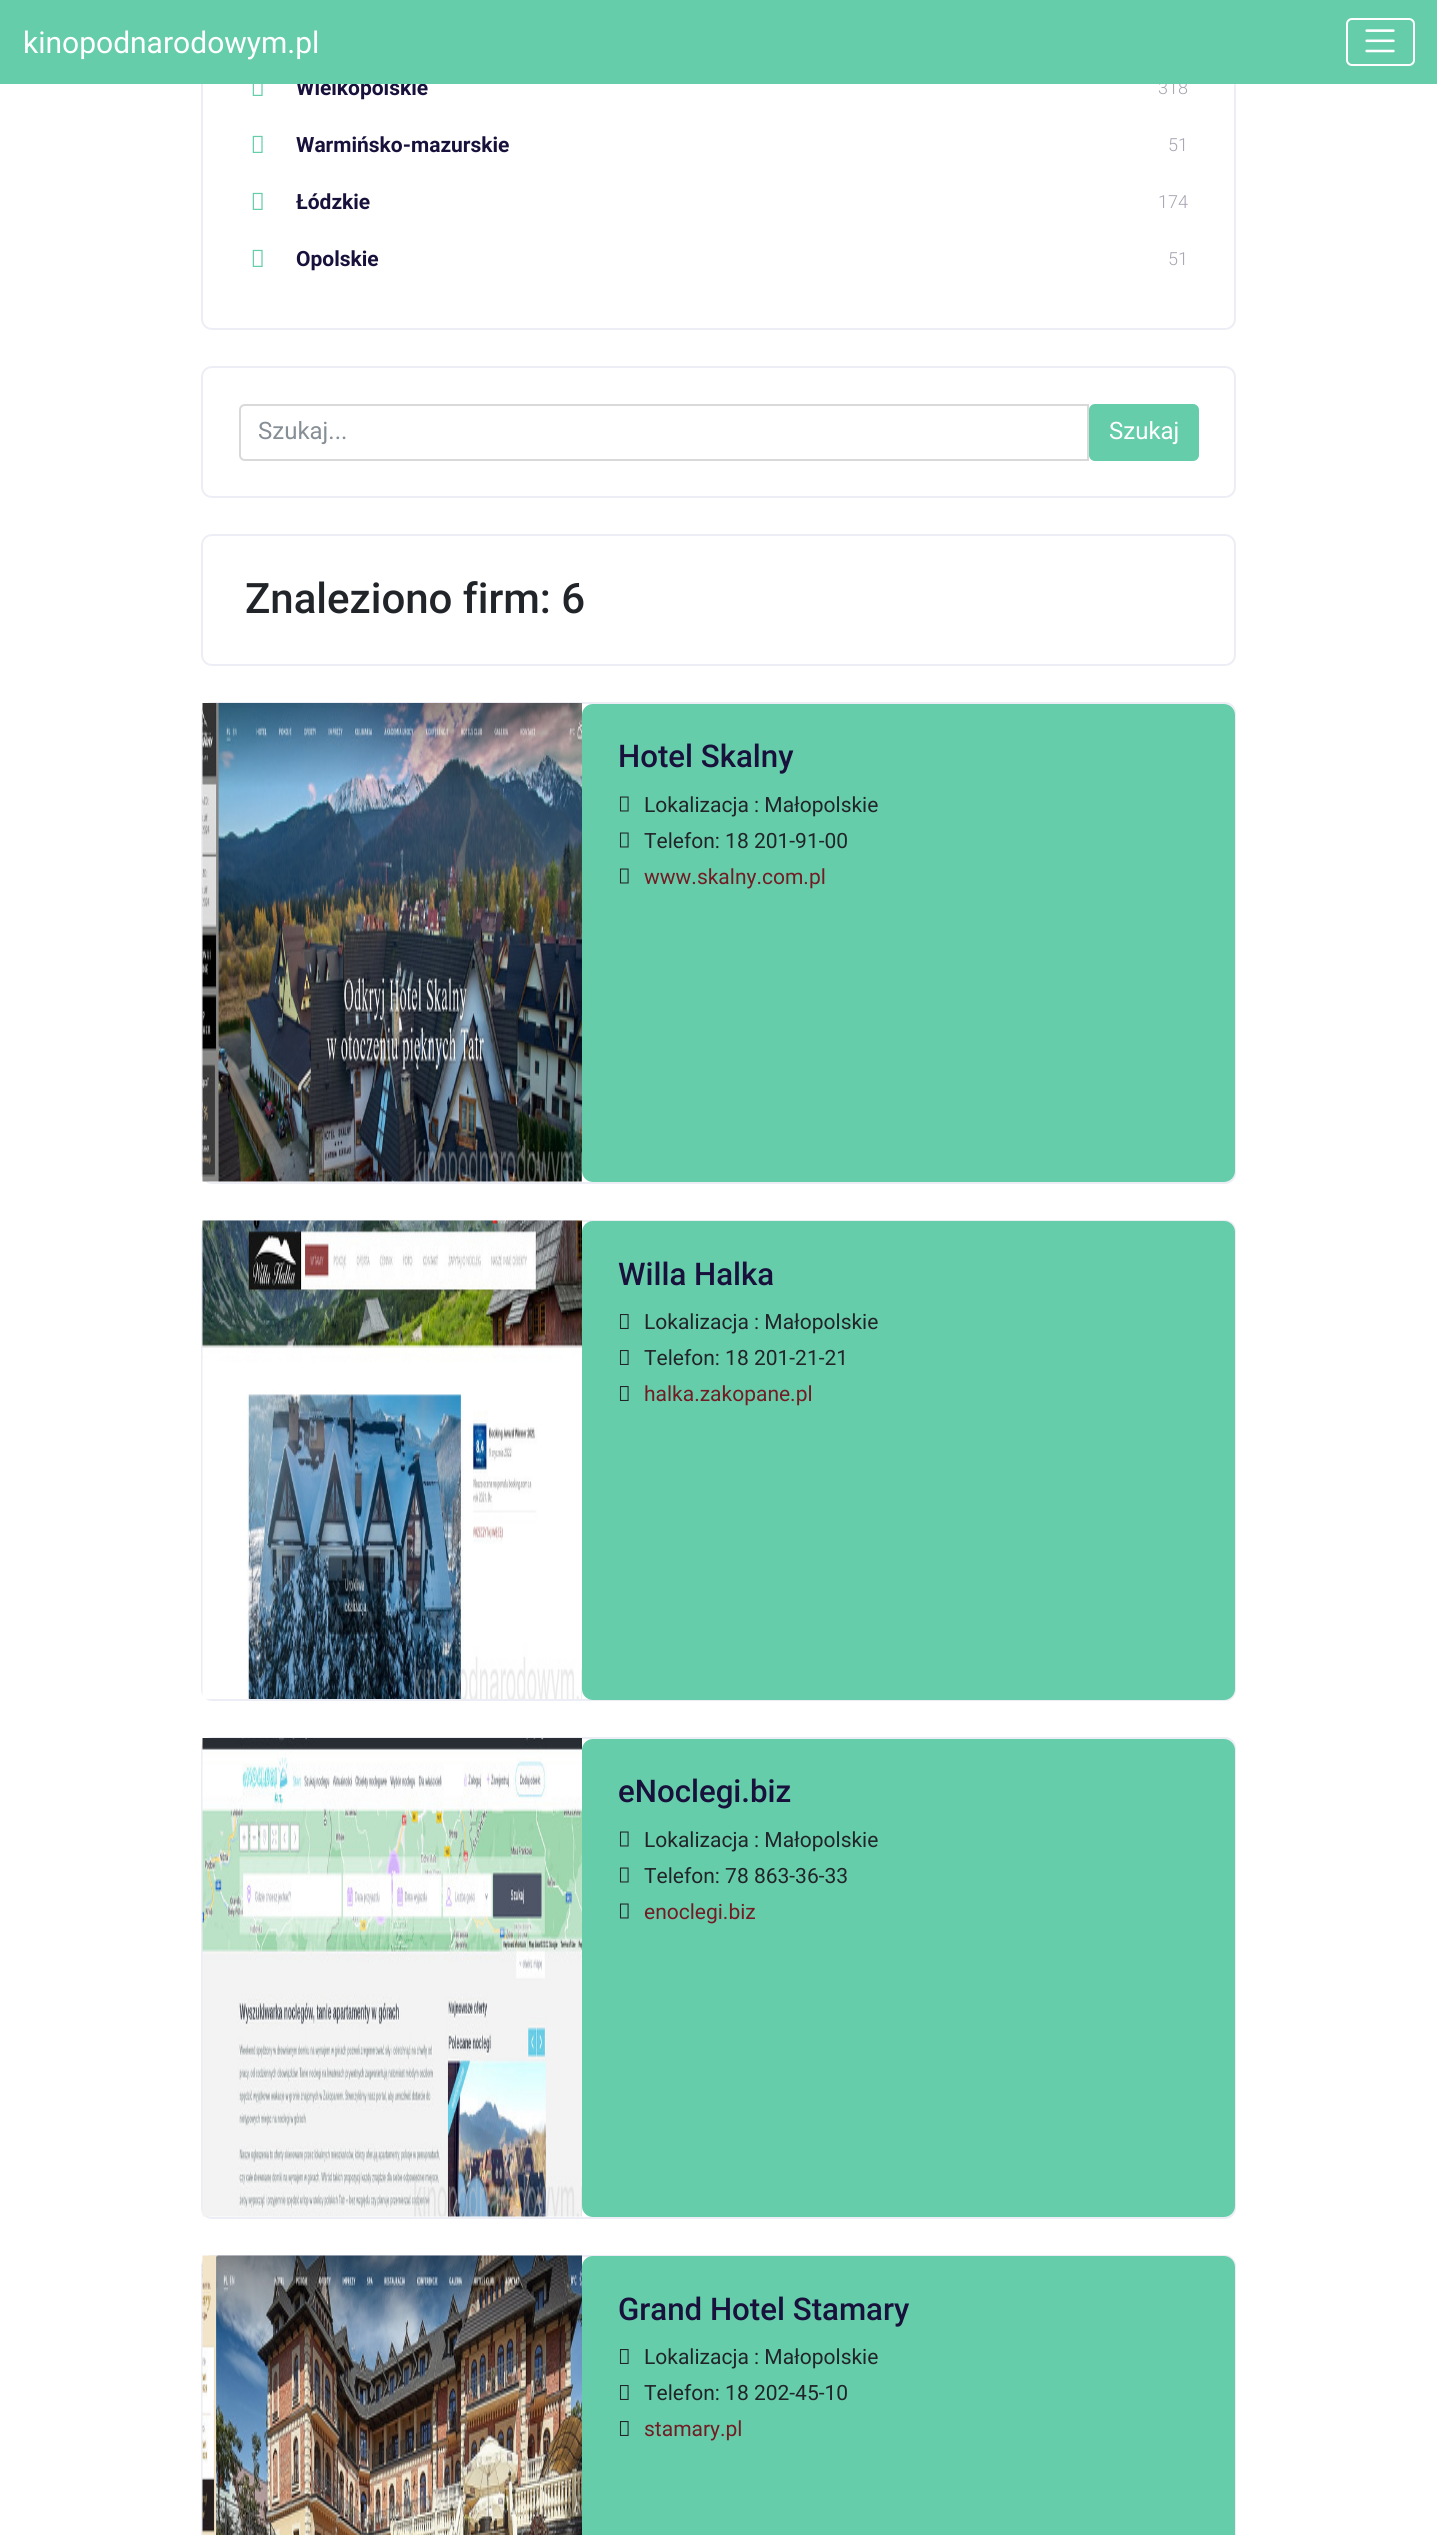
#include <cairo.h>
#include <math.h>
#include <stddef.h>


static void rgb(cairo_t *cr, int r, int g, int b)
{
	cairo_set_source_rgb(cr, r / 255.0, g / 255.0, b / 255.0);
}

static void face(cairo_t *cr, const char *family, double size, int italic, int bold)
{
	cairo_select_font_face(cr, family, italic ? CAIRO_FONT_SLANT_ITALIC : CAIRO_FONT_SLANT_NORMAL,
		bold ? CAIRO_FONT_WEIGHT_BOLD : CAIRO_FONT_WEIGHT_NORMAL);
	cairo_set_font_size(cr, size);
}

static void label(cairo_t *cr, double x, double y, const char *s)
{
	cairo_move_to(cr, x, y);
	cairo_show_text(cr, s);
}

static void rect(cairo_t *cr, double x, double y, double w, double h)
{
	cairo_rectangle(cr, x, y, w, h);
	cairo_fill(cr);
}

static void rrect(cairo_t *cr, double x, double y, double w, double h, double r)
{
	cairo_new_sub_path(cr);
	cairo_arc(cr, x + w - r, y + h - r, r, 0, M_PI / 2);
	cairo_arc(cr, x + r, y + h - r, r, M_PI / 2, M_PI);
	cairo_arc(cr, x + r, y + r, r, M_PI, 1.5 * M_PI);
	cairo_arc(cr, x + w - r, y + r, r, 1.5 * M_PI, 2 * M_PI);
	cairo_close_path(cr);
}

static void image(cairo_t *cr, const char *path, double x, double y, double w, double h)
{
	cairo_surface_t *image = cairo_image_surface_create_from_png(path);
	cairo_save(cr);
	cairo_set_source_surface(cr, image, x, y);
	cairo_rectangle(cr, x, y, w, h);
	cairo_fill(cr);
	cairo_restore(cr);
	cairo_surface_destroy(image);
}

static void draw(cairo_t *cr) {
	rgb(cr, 255, 255, 255);
	cairo_paint(cr);
	rrect(cr, 202, -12, 1033, 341, 10);
	rgb(cr, 237, 237, 245);
	cairo_stroke(cr);
	face(cr, "Roboto", 21, 0, 1);
	rgb(cr, 24, 17, 60);
	label(cr, 296, 95, "Wielkopolskie");
	face(cr, "Roboto Light", 18, 0, 0);
	rgb(cr, 168, 163, 176);
	label(cr, 1158, 94, "318");
	rgb(cr, 102, 205, 170);
	rect(cr, 0, 0, 1437, 84);
	face(cr, "Roboto", 30, 0, 0);
	rgb(cr, 255, 255, 255);
	label(cr, 23, 53, "kinopodnarodowym.pl");
	rrect(cr, 1347, 19, 67, 46, 5);
	cairo_stroke(cr);
	image(cr, "image0.png", 1365, 29, 30, 24);
	image(cr, "image1.png", 252, 84, 11, 12);
	image(cr, "image2.png", 252, 135, 11, 18);
	face(cr, "Roboto", 21, 0, 1);
	rgb(cr, 24, 17, 60);
	label(cr, 296, 152, "Warmińsko-mazurskie");
	face(cr, "Roboto Light", 18, 0, 0);
	rgb(cr, 168, 163, 176);
	label(cr, 1168, 151, "51");
	image(cr, "image2.png", 252, 192, 11, 18);
	face(cr, "Roboto", 21, 0, 1);
	rgb(cr, 24, 17, 60);
	label(cr, 296, 209, "Łódzkie");
	face(cr, "Roboto Light", 18, 0, 0);
	rgb(cr, 168, 163, 176);
	label(cr, 1158, 208, "174");
	image(cr, "image2.png", 252, 249, 11, 18);
	face(cr, "Roboto", 21, 0, 1);
	rgb(cr, 24, 17, 60);
	label(cr, 296, 266, "Opolskie");
	face(cr, "Roboto Light", 18, 0, 0);
	rgb(cr, 168, 163, 176);
	label(cr, 1168, 265, "51");
	rrect(cr, 202, 367, 1033, 130, 10);
	rgb(cr, 237, 237, 245);
	cairo_stroke(cr);
	cairo_new_path(cr);
	cairo_move_to(cr, 245, 405);
	cairo_line_to(cr, 1088, 405);
	cairo_line_to(cr, 1088, 460);
	cairo_line_to(cr, 245, 460);
	cairo_curve_to(cr, 242, 460, 240, 458, 240, 455);
	cairo_line_to(cr, 240, 410);
	cairo_curve_to(cr, 240, 407, 242, 405, 245, 405);
	cairo_close_path(cr);
	rgb(cr, 217, 217, 217);
	cairo_stroke(cr);
	face(cr, "Roboto", 24, 0, 0);
	rgb(cr, 134, 142, 150);
	label(cr, 258, 439, "Szukaj...");
	rgb(cr, 102, 205, 170);
	rrect(cr, 1089, 404, 110, 57, 6);
	cairo_fill(cr);
	rgb(cr, 255, 255, 255);
	label(cr, 1109, 439, "Szukaj");
	rrect(cr, 202, 535, 1033, 130, 10);
	rgb(cr, 237, 237, 245);
	cairo_stroke(cr);
	face(cr, "Roboto Medium", 42, 0, 0);
	rgb(cr, 33, 37, 41);
	label(cr, 245, 613, "Znaleziono firm: 6");
	rrect(cr, 202, 703, 1033, 480, 10);
	rgb(cr, 237, 237, 245);
	cairo_stroke(cr);
	image(cr, "image3.png", 202, 703, 380, 479);
	rgb(cr, 102, 205, 170);
	rrect(cr, 582, 704, 653, 478, 11);
	cairo_fill(cr);
	face(cr, "Roboto Medium", 31.25, 0, 0);
	rgb(cr, 24, 17, 60);
	label(cr, 618, 767, "Hotel Skalny");
	image(cr, "image4.png", 619, 796, 10, 16);
	face(cr, "Roboto", 21, 0, 0);
	rgb(cr, 33, 37, 41);
	label(cr, 644, 812, "Lokalizacja : Małopolskie");
	image(cr, "image4.png", 619, 832, 10, 16);
	label(cr, 644, 848, "Telefon: 18 201-91-00");
	image(cr, "image4.png", 619, 868, 10, 16);
	rgb(cr, 114, 28, 36);
	label(cr, 644, 884, "www.skalny.com.pl");
	rrect(cr, 202, 1221, 1033, 479, 10);
	rgb(cr, 237, 237, 245);
	cairo_stroke(cr);
	image(cr, "image5.png", 202, 1220, 380, 479);
	rgb(cr, 102, 205, 170);
	rrect(cr, 582, 1221, 653, 479, 11);
	cairo_fill(cr);
	face(cr, "Roboto Medium", 31.25, 0, 0);
	rgb(cr, 24, 17, 60);
	label(cr, 618, 1285, "Willa Halka");
	image(cr, "image6.png", 619, 1314, 10, 15);
	face(cr, "Roboto", 21, 0, 0);
	rgb(cr, 33, 37, 41);
	label(cr, 644, 1329, "Lokalizacja : Małopolskie");
	image(cr, "image6.png", 619, 1350, 10, 15);
	label(cr, 644, 1365, "Telefon: 18 201-21-21");
	image(cr, "image6.png", 619, 1386, 10, 15);
	rgb(cr, 114, 28, 36);
	label(cr, 644, 1401, "halka.zakopane.pl");
	rrect(cr, 202, 1738, 1033, 480, 10);
	rgb(cr, 237, 237, 245);
	cairo_stroke(cr);
	image(cr, "image7.png", 202, 1738, 380, 479);
	rgb(cr, 102, 205, 170);
	rrect(cr, 582, 1739, 653, 478, 11);
	cairo_fill(cr);
	face(cr, "Roboto Medium", 31.25, 0, 0);
	rgb(cr, 24, 17, 60);
	label(cr, 618, 1802, "eNoclegi.biz");
	image(cr, "image4.png", 619, 1831, 10, 16);
	face(cr, "Roboto", 21, 0, 0);
	rgb(cr, 33, 37, 41);
	label(cr, 644, 1847, "Lokalizacja : Małopolskie");
	image(cr, "image4.png", 619, 1867, 10, 16);
	label(cr, 644, 1883, "Telefon: 78 863-36-33");
	image(cr, "image4.png", 619, 1903, 10, 16);
	rgb(cr, 114, 28, 36);
	label(cr, 644, 1919, "enoclegi.biz");
	rrect(cr, 202, 2256, 1033, 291, 10);
	rgb(cr, 237, 237, 245);
	cairo_stroke(cr);
	image(cr, "image8.png", 202, 2255, 380, 280);
	rgb(cr, 102, 205, 170);
	rrect(cr, 582, 2256, 653, 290, 11);
	cairo_fill(cr);
	face(cr, "Roboto Medium", 31.25, 0, 0);
	rgb(cr, 24, 17, 60);
	label(cr, 618, 2320, "Grand Hotel Stamary");
	image(cr, "image6.png", 619, 2349, 10, 15);
	face(cr, "Roboto", 21, 0, 0);
	rgb(cr, 33, 37, 41);
	label(cr, 644, 2364, "Lokalizacja : Małopolskie");
	image(cr, "image6.png", 619, 2385, 10, 15);
	label(cr, 644, 2400, "Telefon: 18 202-45-10");
	image(cr, "image6.png", 619, 2421, 10, 15);
	rgb(cr, 114, 28, 36);
	label(cr, 644, 2436, "stamary.pl");
}

int main(void) {
	cairo_surface_t *surface = cairo_image_surface_create(CAIRO_FORMAT_RGB24, 1437, 2535);
	cairo_t *cr = cairo_create(surface);
	cairo_font_options_t *options = cairo_font_options_create();
	cairo_font_options_set_hint_metrics(options, CAIRO_HINT_METRICS_OFF);
	cairo_font_options_set_hint_style(options, CAIRO_HINT_STYLE_NONE);
	cairo_set_font_options(cr, options);
	cairo_set_miter_limit(cr, 4);
	draw(cr);
	cairo_surface_write_to_png(surface, "render.png");
	cairo_font_options_destroy(options);
	cairo_destroy(cr);
	cairo_surface_destroy(surface);
	return 0;
}
